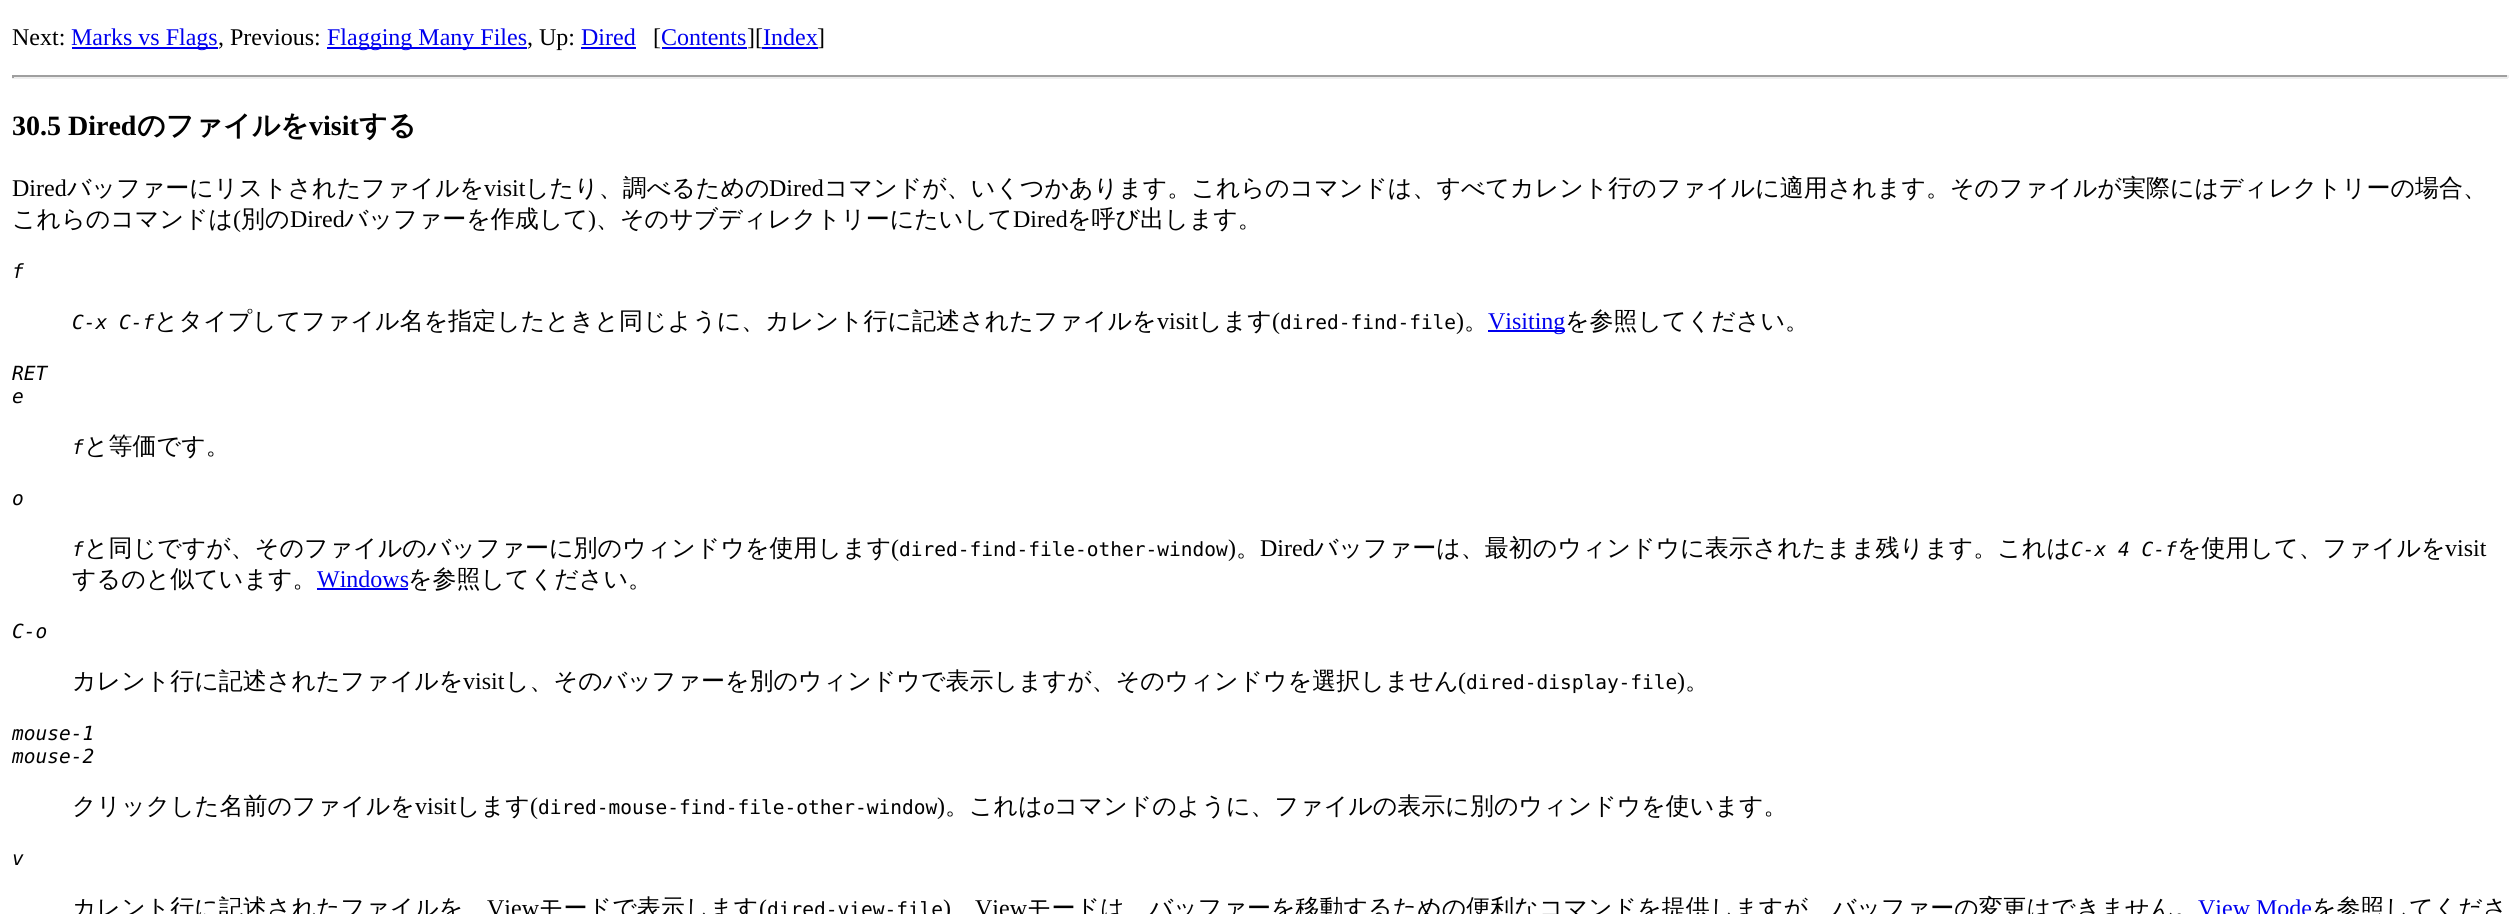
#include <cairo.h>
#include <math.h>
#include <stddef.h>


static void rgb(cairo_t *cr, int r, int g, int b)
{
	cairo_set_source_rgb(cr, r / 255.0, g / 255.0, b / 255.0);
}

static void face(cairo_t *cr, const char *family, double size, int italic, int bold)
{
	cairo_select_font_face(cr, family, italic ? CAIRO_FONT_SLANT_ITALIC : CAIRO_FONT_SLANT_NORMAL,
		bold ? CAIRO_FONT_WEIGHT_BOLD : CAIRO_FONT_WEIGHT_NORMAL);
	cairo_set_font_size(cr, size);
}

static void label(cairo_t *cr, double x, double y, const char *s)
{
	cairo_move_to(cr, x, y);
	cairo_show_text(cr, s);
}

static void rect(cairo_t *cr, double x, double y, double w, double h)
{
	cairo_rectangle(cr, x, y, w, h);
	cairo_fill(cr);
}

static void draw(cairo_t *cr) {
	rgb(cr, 255, 255, 255);
	cairo_paint(cr);
	face(cr, "Liberation Serif", 24, 0, 0);
	rgb(cr, 0, 0, 0);
	label(cr, 12, 45, "Next:");
	rgb(cr, 0, 0, 238);
	rect(cr, 72, 47, 146, 2);
	label(cr, 71, 45, "Marks vs Flags");
	rgb(cr, 0, 0, 0);
	label(cr, 218, 45, ", Previous:");
	rgb(cr, 0, 0, 238);
	rect(cr, 327, 47, 200, 2);
	label(cr, 327, 45, "Flagging Many Files");
	rgb(cr, 0, 0, 0);
	label(cr, 527, 45, ", Up:");
	rgb(cr, 0, 0, 238);
	label(cr, 581, 45, "Dired");
	rect(cr, 581, 47, 55, 2);
	rgb(cr, 0, 0, 0);
	label(cr, 653, 45, "[");
	rgb(cr, 0, 0, 238);
	label(cr, 661, 45, "Contents");
	rect(cr, 662, 47, 85, 2);
	rgb(cr, 0, 0, 0);
	label(cr, 747, 45, "][");
	rgb(cr, 0, 0, 238);
	label(cr, 763, 45, "Index");
	rect(cr, 762, 47, 56, 2);
	rgb(cr, 0, 0, 0);
	label(cr, 817, 45, "]");
	rgb(cr, 159, 159, 159);
	rect(cr, 12, 75, 2496, 2);
	rgb(cr, 238, 238, 238);
	rect(cr, 2507, 75, 2, 3);
	rect(cr, 12, 77, 2496, 2);
	rgb(cr, 159, 159, 159);
	rect(cr, 12, 75, 2, 3);
	face(cr, "Liberation Serif", 28, 0, 1);
	rgb(cr, 0, 0, 0);
	label(cr, 12, 135, "30.5 Dired");
	face(cr, "WenQuanYi Zen Hei", 28, 0, 1);
	label(cr, 137, 135, "のファイルを");
	face(cr, "Liberation Serif", 28, 0, 1);
	label(cr, 309, 135, "visit");
	face(cr, "WenQuanYi Zen Hei", 28, 0, 1);
	label(cr, 359, 135, "する");
	face(cr, "Liberation Serif", 24, 0, 0);
	label(cr, 12, 196, "Dired");
	face(cr, "WenQuanYi Zen Hei Medium", 24, 0, 0);
	label(cr, 67, 196, "バッファーにリストされたファイルを");
	face(cr, "Liberation Serif", 24, 0, 0);
	label(cr, 484, 196, "visit");
	face(cr, "WenQuanYi Zen Hei Medium", 24, 0, 0);
	label(cr, 525, 196, "したり、調べるための");
	face(cr, "Liberation Serif", 24, 0, 0);
	label(cr, 769, 196, "Dired");
	face(cr, "WenQuanYi Zen Hei Medium", 24, 0, 0);
	label(cr, 824, 196, "コマンドが、いくつかあります。これらのコマンドは、すべてカレント行のファイルに適用されます。そのファイルが実際にはディレクトリーの場合、");
	label(cr, 12, 227, "これらのコマンドは");
	face(cr, "Liberation Serif", 24, 0, 0);
	label(cr, 233, 227, "(");
	face(cr, "WenQuanYi Zen Hei Medium", 24, 0, 0);
	label(cr, 241, 227, "別の");
	face(cr, "Liberation Serif", 24, 0, 0);
	label(cr, 290, 227, "Dired");
	face(cr, "WenQuanYi Zen Hei Medium", 24, 0, 0);
	label(cr, 344, 227, "バッファーを作成して");
	face(cr, "Liberation Serif", 24, 0, 0);
	label(cr, 588, 227, ")");
	face(cr, "WenQuanYi Zen Hei Medium", 24, 0, 0);
	label(cr, 596, 227, "、そのサブディレクトリーにたいして");
	face(cr, "Liberation Serif", 24, 0, 0);
	label(cr, 1013, 227, "Dired");
	face(cr, "WenQuanYi Zen Hei Medium", 24, 0, 0);
	label(cr, 1067, 227, "を呼び出します。");
	face(cr, "DejaVu Sans Mono", 19.5, 1, 0);
	label(cr, 12, 278, "f");
	label(cr, 72, 329, "C-x C-f");
	face(cr, "WenQuanYi Zen Hei Medium", 24, 0, 0);
	label(cr, 154, 329, "とタイプしてファイル名を指定したときと同じように、カレント行に記述されたファイルを");
	face(cr, "Liberation Serif", 24, 0, 0);
	label(cr, 1157, 329, "visit");
	face(cr, "WenQuanYi Zen Hei Medium", 24, 0, 0);
	label(cr, 1198, 329, "します");
	face(cr, "Liberation Serif", 24, 0, 0);
	label(cr, 1272, 329, "(");
	face(cr, "DejaVu Sans Mono", 19.5, 0, 0);
	label(cr, 1280, 329, "dired-find-file");
	face(cr, "Liberation Serif", 24, 0, 0);
	label(cr, 1456, 329, ")");
	face(cr, "WenQuanYi Zen Hei Medium", 24, 0, 0);
	label(cr, 1464, 329, "。");
	rgb(cr, 0, 0, 238);
	rect(cr, 1488, 330, 77, 2);
	face(cr, "Liberation Serif", 24, 0, 0);
	label(cr, 1488, 329, "Visiting");
	face(cr, "WenQuanYi Zen Hei Medium", 24, 0, 0);
	rgb(cr, 0, 0, 0);
	label(cr, 1565, 329, "を参照してください。");
	face(cr, "DejaVu Sans Mono", 19.5, 1, 0);
	label(cr, 12, 380, "RET");
	label(cr, 12, 403, "e");
	label(cr, 72, 454, "f");
	face(cr, "WenQuanYi Zen Hei Medium", 24, 0, 0);
	label(cr, 84, 454, "と等価です。");
	face(cr, "DejaVu Sans Mono", 19.5, 1, 0);
	label(cr, 12, 505, "o");
	label(cr, 72, 556, "f");
	face(cr, "WenQuanYi Zen Hei Medium", 24, 0, 0);
	label(cr, 84, 556, "と同じですが、そのファイルのバッファーに別のウィンドウを使用します");
	face(cr, "Liberation Serif", 24, 0, 0);
	label(cr, 891, 556, "(");
	face(cr, "DejaVu Sans Mono", 19.5, 0, 0);
	label(cr, 899, 556, "dired-find-file-other-window");
	face(cr, "Liberation Serif", 24, 0, 0);
	label(cr, 1228, 556, ")");
	face(cr, "WenQuanYi Zen Hei Medium", 24, 0, 0);
	label(cr, 1236, 556, "。");
	face(cr, "Liberation Serif", 24, 0, 0);
	label(cr, 1260, 556, "Dired");
	face(cr, "WenQuanYi Zen Hei Medium", 24, 0, 0);
	label(cr, 1314, 556, "バッファーは、最初のウィンドウに表示されたまま残ります。これは");
	face(cr, "DejaVu Sans Mono", 19.5, 1, 0);
	label(cr, 2071, 556, "C-x 4 C-f");
	face(cr, "WenQuanYi Zen Hei Medium", 24, 0, 0);
	label(cr, 2177, 556, "を使用して、ファイルを");
	face(cr, "Liberation Serif", 24, 0, 0);
	label(cr, 2445, 556, "visit");
	face(cr, "WenQuanYi Zen Hei Medium", 24, 0, 0);
	label(cr, 72, 587, "するのと似ています。");
	face(cr, "Liberation Serif", 24, 0, 0);
	rgb(cr, 0, 0, 238);
	label(cr, 317, 587, "Windows");
	rect(cr, 317, 588, 91, 2);
	face(cr, "WenQuanYi Zen Hei Medium", 24, 0, 0);
	rgb(cr, 0, 0, 0);
	label(cr, 408, 587, "を参照してください。");
	face(cr, "DejaVu Sans Mono", 19.5, 1, 0);
	label(cr, 12, 638, "C-o");
	face(cr, "WenQuanYi Zen Hei Medium", 24, 0, 0);
	label(cr, 72, 689, "カレント行に記述されたファイルを");
	face(cr, "Liberation Serif", 24, 0, 0);
	label(cr, 463, 689, "visit");
	face(cr, "WenQuanYi Zen Hei Medium", 24, 0, 0);
	label(cr, 505, 689, "し、そのバッファーを別のウィンドウで表示しますが、そのウィンドウを選択しません");
	face(cr, "Liberation Serif", 24, 0, 0);
	label(cr, 1458, 689, "(");
	face(cr, "DejaVu Sans Mono", 19.5, 0, 0);
	label(cr, 1466, 689, "dired-display-file");
	face(cr, "Liberation Serif", 24, 0, 0);
	label(cr, 1677, 689, ")");
	face(cr, "WenQuanYi Zen Hei Medium", 24, 0, 0);
	label(cr, 1685, 689, "。");
	face(cr, "DejaVu Sans Mono", 19.5, 1, 0);
	label(cr, 12, 740, "mouse-1");
	label(cr, 12, 763, "mouse-2");
	face(cr, "WenQuanYi Zen Hei Medium", 24, 0, 0);
	label(cr, 72, 814, "クリックした名前のファイルを");
	face(cr, "Liberation Serif", 24, 0, 0);
	label(cr, 415, 814, "visit");
	face(cr, "WenQuanYi Zen Hei Medium", 24, 0, 0);
	label(cr, 456, 814, "します");
	face(cr, "Liberation Serif", 24, 0, 0);
	label(cr, 530, 814, "(");
	face(cr, "DejaVu Sans Mono", 19.5, 0, 0);
	label(cr, 538, 814, "dired-mouse-find-file-other-window");
	face(cr, "Liberation Serif", 24, 0, 0);
	label(cr, 937, 814, ")");
	face(cr, "WenQuanYi Zen Hei Medium", 24, 0, 0);
	label(cr, 945, 814, "。これは");
	face(cr, "DejaVu Sans Mono", 19.5, 1, 0);
	label(cr, 1043, 814, "o");
	face(cr, "WenQuanYi Zen Hei Medium", 24, 0, 0);
	label(cr, 1054, 814, "コマンドのように、ファイルの表示に別のウィンドウを使います。");
	face(cr, "DejaVu Sans Mono", 19.5, 1, 0);
	label(cr, 12, 865, "v");
	face(cr, "WenQuanYi Zen Hei Medium", 24, 0, 0);
	label(cr, 72, 916, "カレント行に記述されたファイルを");
	face(cr, "Liberation Serif", 24, 0, 0);
	label(cr, 487, 916, "View");
	face(cr, "WenQuanYi Zen Hei Medium", 24, 0, 0);
	label(cr, 539, 916, "モードで表示します");
	face(cr, "Liberation Serif", 24, 0, 0);
	label(cr, 759, 916, "(");
	face(cr, "DejaVu Sans Mono", 19.5, 0, 0);
	label(cr, 767, 916, "dired-view-file");
	face(cr, "Liberation Serif", 24, 0, 0);
	label(cr, 943, 916, ")");
	label(cr, 975, 916, "View");
	face(cr, "WenQuanYi Zen Hei Medium", 24, 0, 0);
	label(cr, 1027, 916, "モードは、バッファーを移動するための便利なコマンドを提供しますが、バッファーの変更はできません。");
	face(cr, "Liberation Serif", 24, 0, 0);
	rgb(cr, 0, 0, 238);
	label(cr, 2198, 916, "View Mode");
	face(cr, "WenQuanYi Zen Hei Medium", 24, 0, 0);
	rgb(cr, 0, 0, 0);
	label(cr, 2312, 916, "を参照してくださ");
}

int main(void) {
	cairo_surface_t *surface = cairo_image_surface_create(CAIRO_FORMAT_RGB24, 2519, 914);
	cairo_t *cr = cairo_create(surface);
	cairo_font_options_t *options = cairo_font_options_create();
	cairo_font_options_set_hint_metrics(options, CAIRO_HINT_METRICS_OFF);
	cairo_font_options_set_hint_style(options, CAIRO_HINT_STYLE_NONE);
	cairo_set_font_options(cr, options);
	cairo_set_miter_limit(cr, 4);
	draw(cr);
	cairo_surface_write_to_png(surface, "render.png");
	cairo_font_options_destroy(options);
	cairo_destroy(cr);
	cairo_surface_destroy(surface);
	return 0;
}
